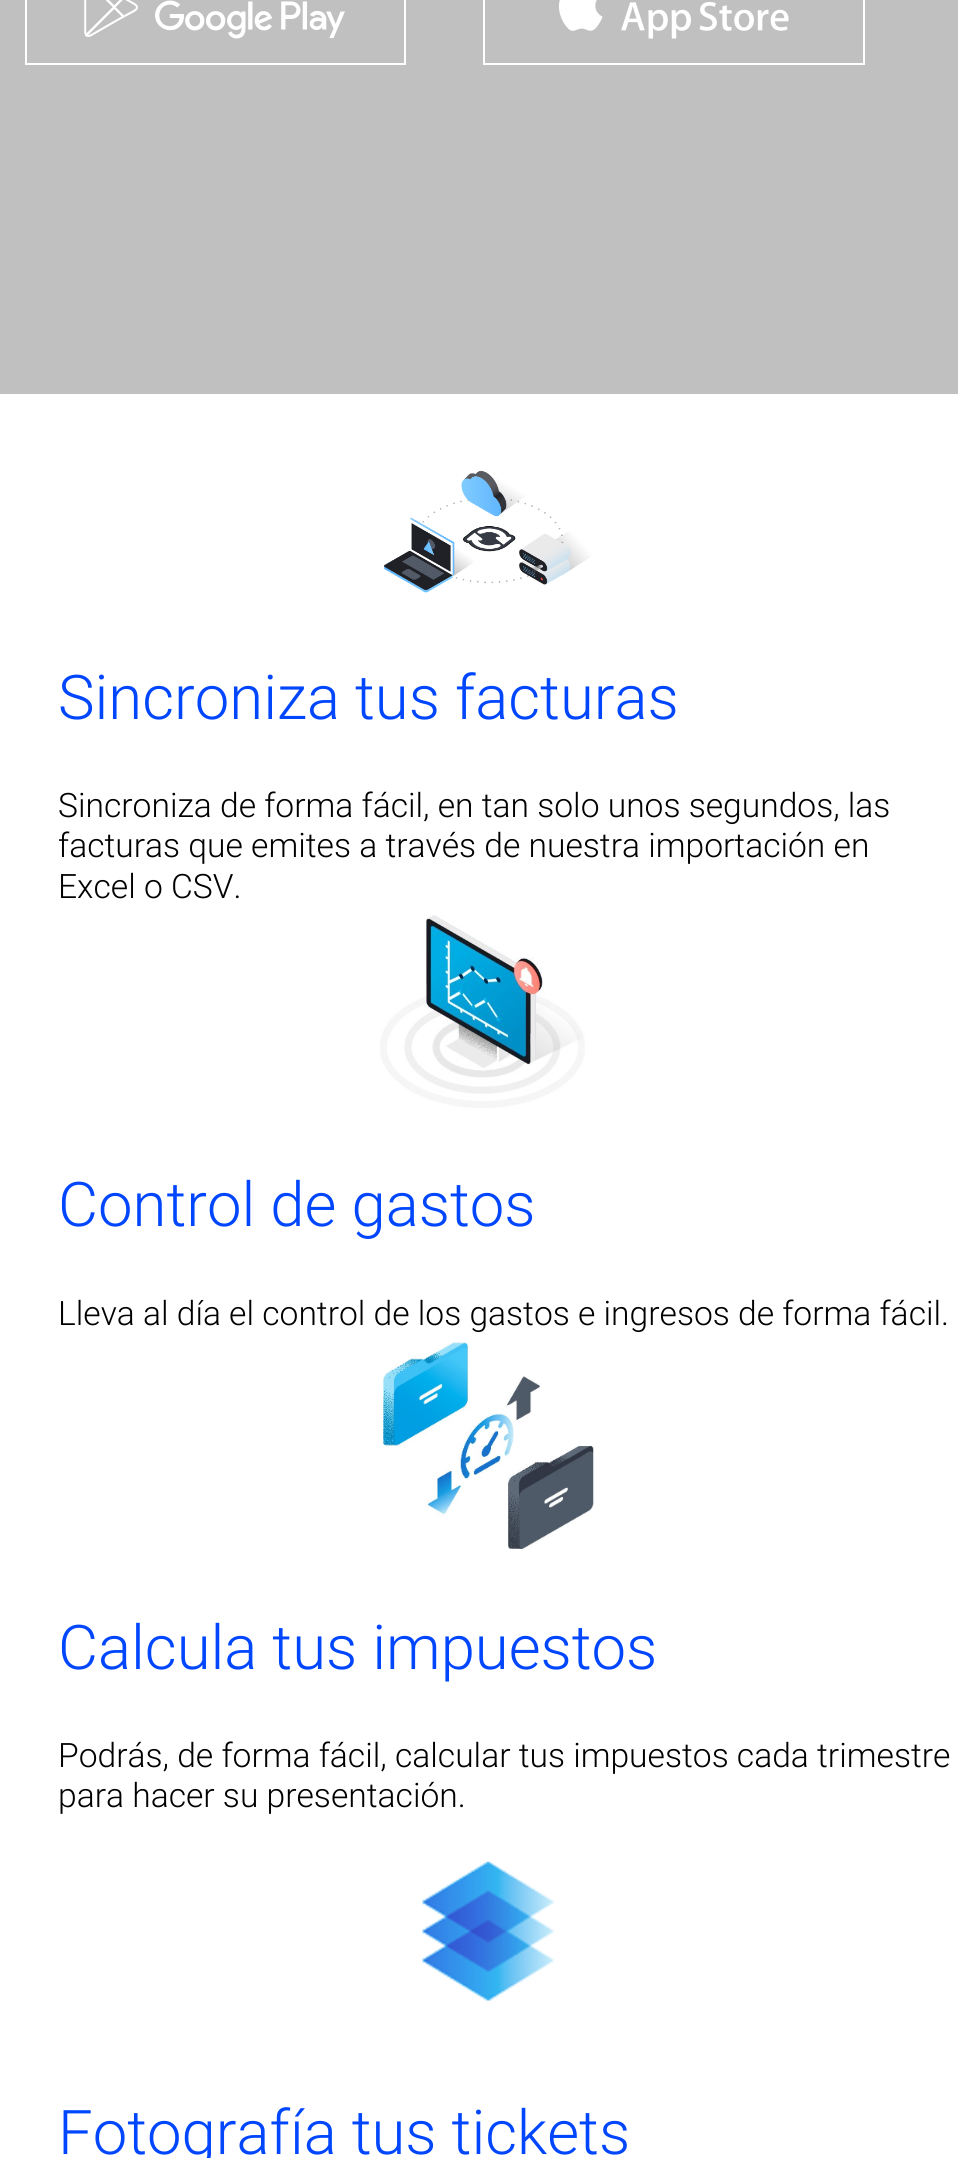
#include <cairo.h>
#include <math.h>
#include <stddef.h>


static void rgb(cairo_t *cr, int r, int g, int b)
{
	cairo_set_source_rgb(cr, r / 255.0, g / 255.0, b / 255.0);
}

static void face(cairo_t *cr, const char *family, double size, int italic, int bold)
{
	cairo_select_font_face(cr, family, italic ? CAIRO_FONT_SLANT_ITALIC : CAIRO_FONT_SLANT_NORMAL,
		bold ? CAIRO_FONT_WEIGHT_BOLD : CAIRO_FONT_WEIGHT_NORMAL);
	cairo_set_font_size(cr, size);
}

static void label(cairo_t *cr, double x, double y, const char *s)
{
	cairo_move_to(cr, x, y);
	cairo_show_text(cr, s);
}

static void rect(cairo_t *cr, double x, double y, double w, double h)
{
	cairo_rectangle(cr, x, y, w, h);
	cairo_fill(cr);
}

static void image(cairo_t *cr, const char *path, double x, double y, double w, double h)
{
	cairo_surface_t *image = cairo_image_surface_create_from_png(path);
	cairo_save(cr);
	cairo_set_source_surface(cr, image, x, y);
	cairo_rectangle(cr, x, y, w, h);
	cairo_fill(cr);
	cairo_restore(cr);
	cairo_surface_destroy(image);
}

static void draw(cairo_t *cr) {
	rgb(cr, 255, 255, 255);
	cairo_paint(cr);
	rgb(cr, 192, 192, 192);
	rect(cr, 0, 0, 958, 394);
	cairo_rectangle(cr, 26, -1, 379, 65);
	rgb(cr, 255, 255, 255);
	cairo_stroke(cr);
	image(cr, "image0.png", 84, 0, 261, 39);
	cairo_rectangle(cr, 484, -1, 380, 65);
	cairo_stroke(cr);
	image(cr, "image1.png", 559, 0, 230, 39);
	image(cr, "image2.png", 384, 470, 207, 123);
	face(cr, "Roboto Light", 61.6, 0, 0);
	rgb(cr, 0, 70, 254);
	label(cr, 58, 719, "Sincroniza tus facturas");
	face(cr, "Roboto Light", 33.6, 0, 0);
	rgb(cr, 0, 0, 0);
	label(cr, 58, 817, "Sincroniza de forma fácil, en tan solo unos segundos, las");
	label(cr, 58, 857, "facturas que emites a través de nuestra importación en");
	label(cr, 58, 898, "Excel o CSV.");
	image(cr, "image3.png", 380, 915, 205, 193);
	face(cr, "Roboto Light", 61.6, 0, 0);
	rgb(cr, 0, 70, 254);
	label(cr, 58, 1226, "Control de gastos");
	face(cr, "Roboto Light", 33.6, 0, 0);
	rgb(cr, 0, 0, 0);
	label(cr, 58, 1325, "Lleva al día el control de los gastos e ingresos de forma fácil.");
	image(cr, "image4.png", 383, 1342, 211, 207);
	face(cr, "Roboto Light", 61.6, 0, 0);
	rgb(cr, 0, 70, 254);
	label(cr, 58, 1669, "Calcula tus impuestos");
	face(cr, "Roboto Light", 33.6, 0, 0);
	rgb(cr, 0, 0, 0);
	label(cr, 58, 1767, "Podrás, de forma fácil, calcular tus impuestos cada trimestre");
	label(cr, 58, 1807, "para hacer su presentación.");
	image(cr, "image5.png", 422, 1861, 133, 140);
	face(cr, "Roboto Light", 61.6, 0, 0);
	rgb(cr, 0, 70, 254);
	label(cr, 58, 2154, "Fotografía tus tickets");
}

int main(void) {
	cairo_surface_t *surface = cairo_image_surface_create(CAIRO_FORMAT_RGB24, 958, 2158);
	cairo_t *cr = cairo_create(surface);
	cairo_font_options_t *options = cairo_font_options_create();
	cairo_font_options_set_hint_metrics(options, CAIRO_HINT_METRICS_OFF);
	cairo_font_options_set_hint_style(options, CAIRO_HINT_STYLE_NONE);
	cairo_set_font_options(cr, options);
	cairo_set_miter_limit(cr, 4);
	draw(cr);
	cairo_surface_write_to_png(surface, "render.png");
	cairo_font_options_destroy(options);
	cairo_destroy(cr);
	cairo_surface_destroy(surface);
	return 0;
}
